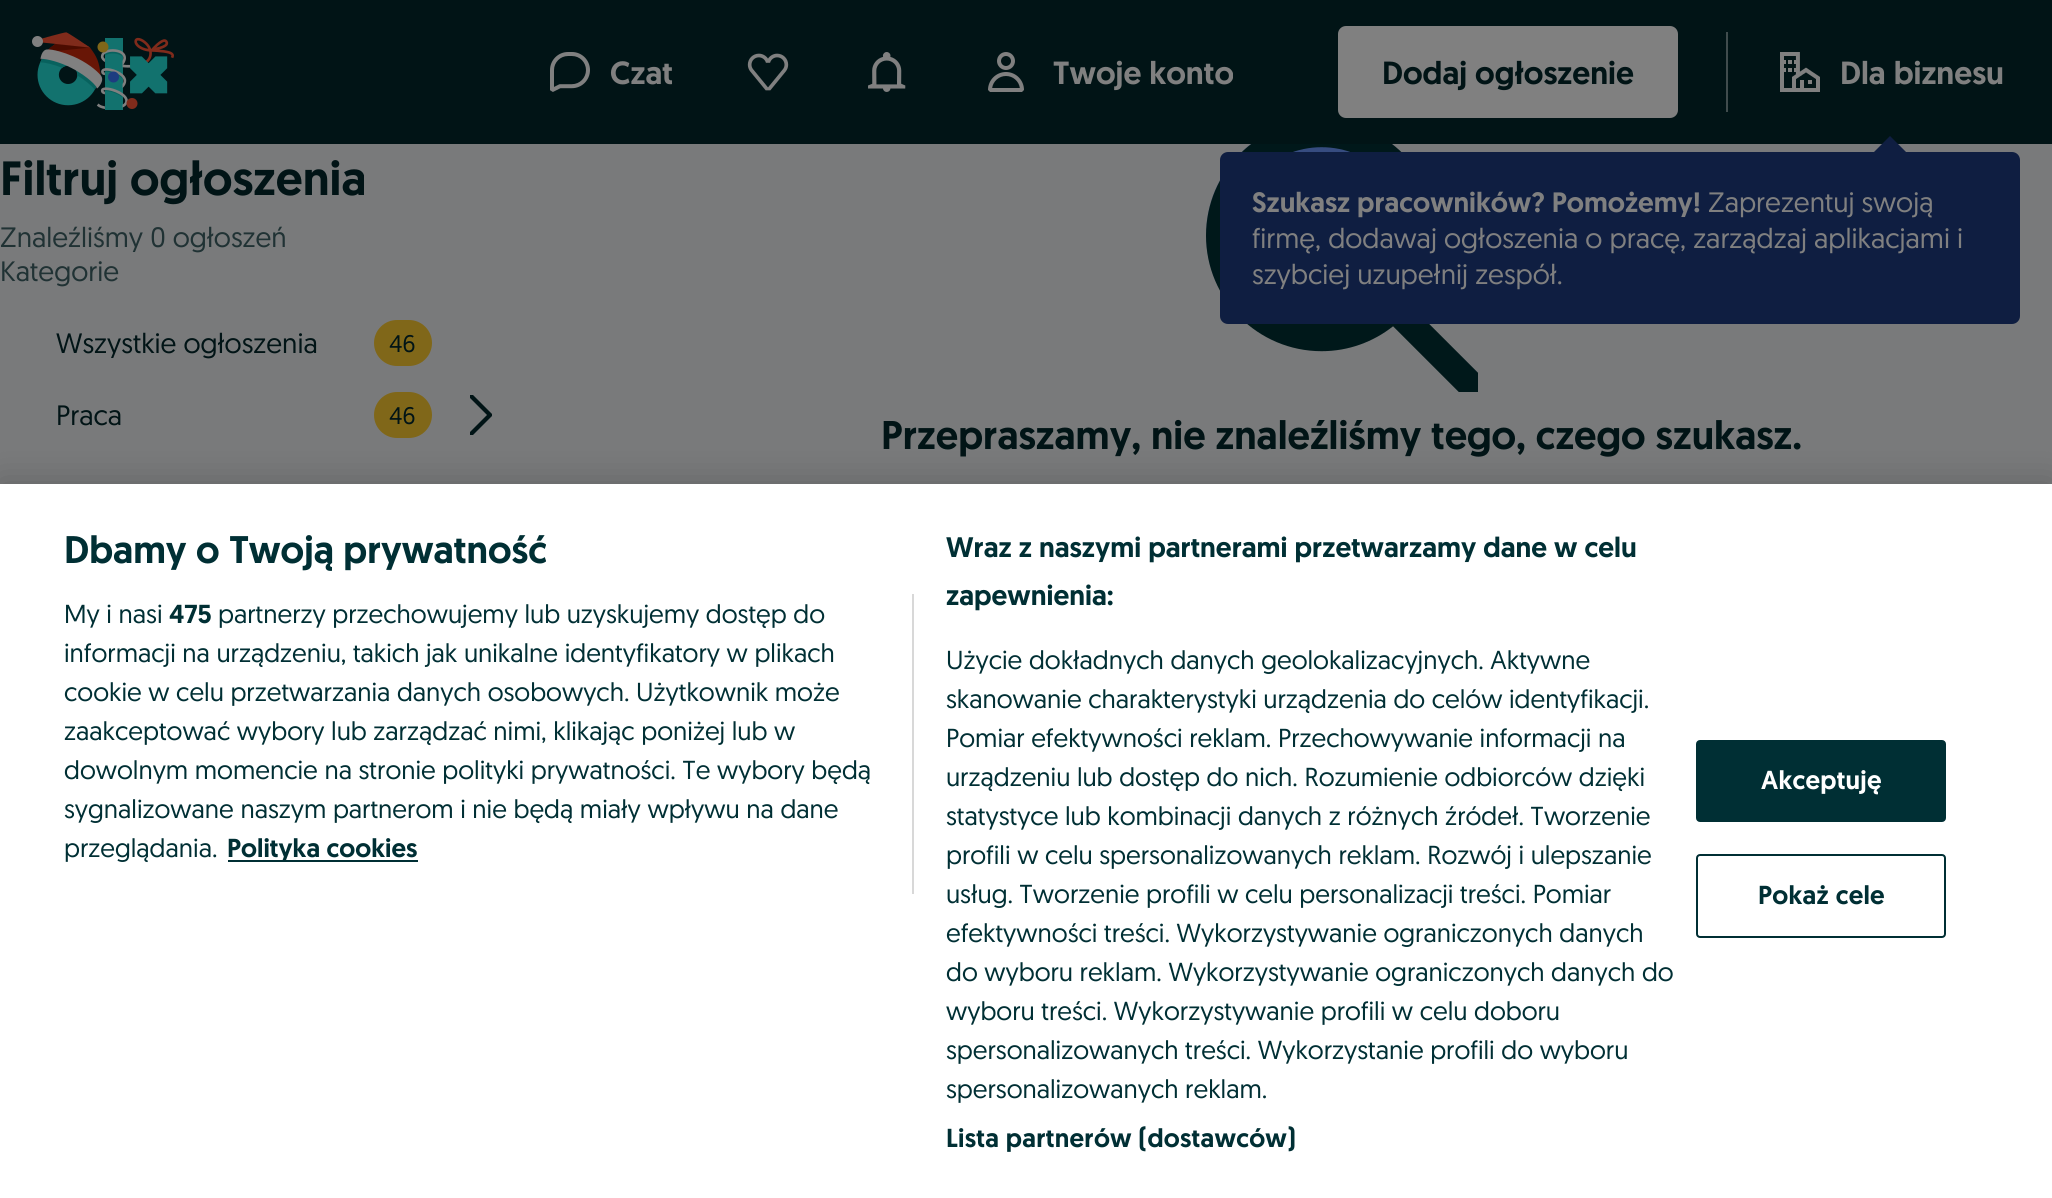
#include <cairo.h>
#include <math.h>
#include <stddef.h>


static void rgb(cairo_t *cr, int r, int g, int b)
{
	cairo_set_source_rgb(cr, r / 255.0, g / 255.0, b / 255.0);
}

static void face(cairo_t *cr, const char *family, double size, int italic, int bold)
{
	cairo_select_font_face(cr, family, italic ? CAIRO_FONT_SLANT_ITALIC : CAIRO_FONT_SLANT_NORMAL,
		bold ? CAIRO_FONT_WEIGHT_BOLD : CAIRO_FONT_WEIGHT_NORMAL);
	cairo_set_font_size(cr, size);
}

static void label(cairo_t *cr, double x, double y, const char *s)
{
	cairo_move_to(cr, x, y);
	cairo_show_text(cr, s);
}

static void tracked(cairo_t *cr, double x, double y, const char *s, double letter, double word)
{
	cairo_move_to(cr, x, y);
	while (*s) {
		char ch[5] = {0};
		int n = 0;
		do ch[n++] = *s++; while ((*s & 0xC0) == 0x80);
		cairo_show_text(cr, ch);
		cairo_rel_move_to(cr, letter + word * (*ch == ' '), 0);
	}
}

static void rect(cairo_t *cr, double x, double y, double w, double h)
{
	cairo_rectangle(cr, x, y, w, h);
	cairo_fill(cr);
}

static void rrect(cairo_t *cr, double x, double y, double w, double h, double r)
{
	cairo_new_sub_path(cr);
	cairo_arc(cr, x + w - r, y + h - r, r, 0, M_PI / 2);
	cairo_arc(cr, x + r, y + h - r, r, M_PI / 2, M_PI);
	cairo_arc(cr, x + r, y + r, r, M_PI, 1.5 * M_PI);
	cairo_arc(cr, x + w - r, y + r, r, 1.5 * M_PI, 2 * M_PI);
	cairo_close_path(cr);
}

static void soft_shadow(cairo_t *cr, double x, double y, double w, double h, double r, double blur, double alpha)
{
	cairo_push_group_with_content(cr, CAIRO_CONTENT_ALPHA);
	cairo_set_operator(cr, CAIRO_OPERATOR_SOURCE);
	for (int i = 15; i >= -15 && fmin(w, h) + blur * i / 3 > 0; i -= 2) {
		double e = blur * i / 6;
		cairo_set_source_rgba(cr, 0, 0, 0, alpha * erfc((i - 1) / 8.5) / 2);
		rrect(cr, x - e, y - e, w + 2 * e, h + 2 * e, fmax(0, fmin(r + e + blur * .6, fmin(w, h) / 2 + e)));
		cairo_fill(cr);
	}
	cairo_pattern_t *soft = cairo_pop_group(cr);
	cairo_mask(cr, soft);
	cairo_pattern_destroy(soft);
}

static void image(cairo_t *cr, const char *path, double x, double y, double w, double h)
{
	cairo_surface_t *image = cairo_image_surface_create_from_png(path);
	cairo_save(cr);
	cairo_set_source_surface(cr, image, x, y);
	cairo_rectangle(cr, x, y, w, h);
	cairo_fill(cr);
	cairo_restore(cr);
	cairo_surface_destroy(image);
}

static void draw(cairo_t *cr) {
	rgb(cr, 121, 122, 123);
	cairo_paint(cr);
	rgb(cr, 1, 20, 22);
	rect(cr, 0, 0, 2052, 144);
	image(cr, "image0.png", 32, 32, 142, 78);
	image(cr, "image1.png", 747, 53, 42, 38);
	image(cr, "image2.png", 868, 52, 38, 40);
	image(cr, "image3.png", 988, 52, 36, 40);
	face(cr, "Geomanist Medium", 32, 0, 0);
	rgb(cr, 128, 128, 128);
	label(cr, 1053, 84, "Twoje konto");
	rgb(cr, 64, 76, 77);
	rect(cr, 1726, 32, 2, 80);
	image(cr, "image4.png", 1780, 52, 40, 40);
	rgb(cr, 128, 128, 128);
	label(cr, 1840, 84, "Dla biznesu");
	image(cr, "image6.png", 1206, 144, 272, 248);
	rgb(cr, 15, 30, 65);
	rrect(cr, 1220, 152, 800, 172, 8);
	cairo_fill(cr);
	cairo_new_path(cr);
	cairo_move_to(cr, 1906, 152);
	cairo_line_to(cr, 1874, 152);
	cairo_line_to(cr, 1890, 136);
	cairo_close_path(cr);
	cairo_fill(cr);
	face(cr, "Geomanist Medium", 28, 0, 0);
	rgb(cr, 128, 128, 128);
	label(cr, 1252, 212, "Szukasz pracowników? Pomożemy!");
	face(cr, "Geomanist", 28, 0, 0);
	label(cr, 1708, 212, "Zaprezentuj swoją");
	label(cr, 1252, 248, "firmę, dodawaj ogłoszenia o pracę, zarządzaj aplikacjami i");
	label(cr, 1252, 284, "szybciej uzupełnij zespół.");
	image(cr, "image5.png", 550, 52, 40, 40);
	face(cr, "Geomanist Medium", 32, 0, 0);
	label(cr, 610, 84, "Czat");
	rrect(cr, 1338, 26, 340, 92, 8);
	cairo_fill(cr);
	rgb(cr, 1, 20, 22);
	label(cr, 1382, 84, "Dodaj ogłoszenie");
	face(cr, "Geomanist Medium", 48, 0, 0);
	label(cr, 0, 195, "Filtruj ogłoszenia");
	face(cr, "Geomanist", 28, 0, 0);
	rgb(cr, 32, 50, 52);
	label(cr, 0, 247, "Znaleźliśmy 0 ogłoszeń");
	label(cr, 0, 281, "Kategorie");
	rgb(cr, 1, 20, 22);
	label(cr, 56, 353, "Wszystkie ogłoszenia");
	rgb(cr, 128, 103, 25);
	rrect(cr, 374, 320, 58, 46, 23);
	cairo_fill(cr);
	face(cr, "Geomanist", 24, 0, 0);
	rgb(cr, 1, 20, 22);
	label(cr, 389, 352, "46");
	face(cr, "Geomanist", 28, 0, 0);
	label(cr, 56, 425, "Praca");
	rgb(cr, 128, 103, 25);
	rrect(cr, 374, 392, 58, 46, 23);
	cairo_fill(cr);
	face(cr, "Geomanist", 24, 0, 0);
	rgb(cr, 1, 20, 22);
	label(cr, 389, 424, "46");
	cairo_set_fill_rule(cr, CAIRO_FILL_RULE_EVEN_ODD);
	cairo_new_path(cr);
	cairo_move_to(cr, 470, 435);
	cairo_line_to(cr, 470, 432);
	cairo_line_to(cr, 487, 415);
	cairo_line_to(cr, 470, 398);
	cairo_line_to(cr, 470, 395);
	cairo_line_to(cr, 473, 395);
	cairo_line_to(cr, 492, 414);
	cairo_line_to(cr, 492, 416);
	cairo_line_to(cr, 473, 435);
	cairo_close_path(cr);
	cairo_fill(cr);
	face(cr, "Geomanist Medium", 40, 0, 0);
	label(cr, 881, 449, "Przepraszamy, nie znaleźliśmy tego, czego szukasz.");
	rgb(cr, 0, 0, 0);
	soft_shadow(cr, 0, 484, 2052, 714, 0, 18, 0.2);
	rgb(cr, 255, 255, 255);
	rect(cr, 0, 484, 2052, 714);
	face(cr, "Geomanist Medium", 38.4, 0, 0);
	rgb(cr, 0, 47, 52);
	label(cr, 64, 563, "Dbamy o Twoją prywatność");
	face(cr, "Geomanist Medium", 28.2, 0, 0);
	label(cr, 946, 557, "Wraz z naszymi partnerami przetwarzamy dane w celu");
	label(cr, 946, 605, "zapewnienia:");
	face(cr, "Geomanist", 26, 0, 0);
	label(cr, 946, 669, "Użycie dokładnych danych geolokalizacyjnych. Aktywne");
	label(cr, 946, 708, "skanowanie charakterystyki urządzenia do celów identyfikacji.");
	label(cr, 946, 747, "Pomiar efektywności reklam. Przechowywanie informacji na");
	label(cr, 946, 786, "urządzeniu lub dostęp do nich. Rozumienie odbiorców dzięki");
	label(cr, 946, 825, "statystyce lub kombinacji danych z różnych źródeł. Tworzenie");
	label(cr, 946, 864, "profili w celu spersonalizowanych reklam. Rozwój i ulepszanie");
	label(cr, 946, 903, "usług. Tworzenie profili w celu personalizacji treści. Pomiar");
	label(cr, 946, 942, "efektywności treści. Wykorzystywanie ograniczonych danych");
	label(cr, 946, 981, "do wyboru reklam. Wykorzystywanie ograniczonych danych do");
	label(cr, 946, 1020, "wyboru treści. Wykorzystywanie profili w celu doboru");
	label(cr, 946, 1059, "spersonalizowanych treści. Wykorzystanie profili do wyboru");
	label(cr, 946, 1098, "spersonalizowanych reklam.");
	face(cr, "Geomanist Medium", 26, 0, 0);
	tracked(cr, 946, 1147, "Lista partnerów (dostawców)", 0.25, 0);
	rgb(cr, 216, 216, 216);
	rect(cr, 912, 594, 2, 300);
	face(cr, "Geomanist", 26, 0, 0);
	rgb(cr, 0, 47, 52);
	label(cr, 64, 623, "My i nasi");
	face(cr, "Geomanist Medium", 26, 0, 0);
	label(cr, 169, 623, "475");
	face(cr, "Geomanist", 26, 0, 0);
	label(cr, 218, 623, "partnerzy przechowujemy lub uzyskujemy dostęp do");
	label(cr, 64, 662, "informacji na urządzeniu, takich jak unikalne identyfikatory w plikach");
	label(cr, 64, 701, "cookie w celu przetwarzania danych osobowych. Użytkownik może");
	label(cr, 64, 740, "zaakceptować wybory lub zarządzać nimi, klikając poniżej lub w");
	label(cr, 64, 779, "dowolnym momencie na stronie polityki prywatności. Te wybory będą");
	label(cr, 64, 818, "sygnalizowane naszym partnerom i nie będą miały wpływu na dane");
	label(cr, 64, 857, "przeglądania.");
	rect(cr, 228, 860, 190, 2);
	face(cr, "Geomanist Medium", 26, 0, 0);
	label(cr, 227, 857, "Polityka cookies");
	rrect(cr, 1697, 741, 248, 80, 3);
	cairo_fill_preserve(cr);
	cairo_stroke(cr);
	rgb(cr, 255, 255, 255);
	tracked(cr, 1761, 789, "Akceptuję", 0.25, 0);
	rrect(cr, 1697, 855, 248, 82, 3);
	rgb(cr, 0, 47, 52);
	cairo_stroke(cr);
	tracked(cr, 1758, 904, "Pokaż cele", 0.25, 0);
}

int main(void) {
	cairo_surface_t *surface = cairo_image_surface_create(CAIRO_FORMAT_RGB24, 2052, 1198);
	cairo_t *cr = cairo_create(surface);
	cairo_font_options_t *options = cairo_font_options_create();
	cairo_font_options_set_hint_metrics(options, CAIRO_HINT_METRICS_OFF);
	cairo_font_options_set_hint_style(options, CAIRO_HINT_STYLE_NONE);
	cairo_set_font_options(cr, options);
	cairo_set_miter_limit(cr, 4);
	draw(cr);
	cairo_surface_write_to_png(surface, "render.png");
	cairo_font_options_destroy(options);
	cairo_destroy(cr);
	cairo_surface_destroy(surface);
	return 0;
}
